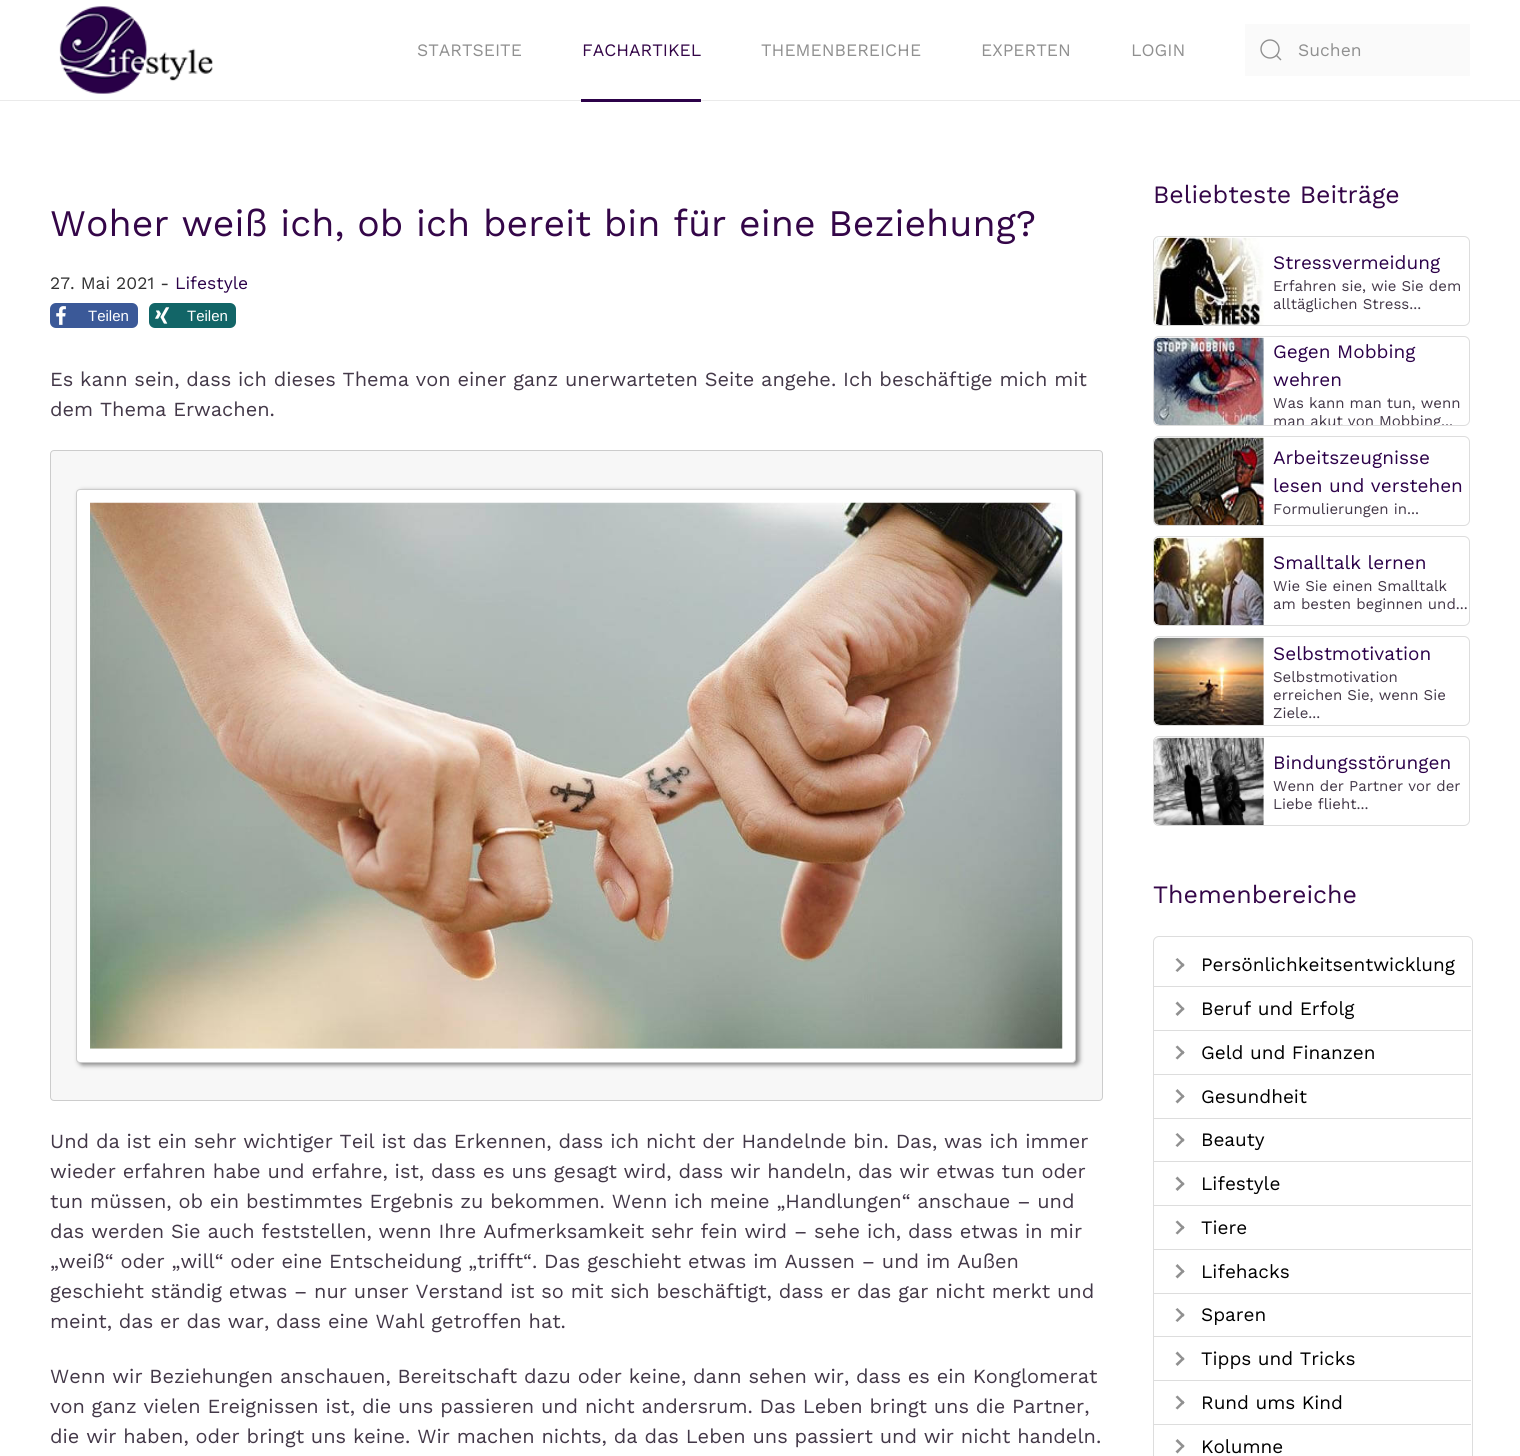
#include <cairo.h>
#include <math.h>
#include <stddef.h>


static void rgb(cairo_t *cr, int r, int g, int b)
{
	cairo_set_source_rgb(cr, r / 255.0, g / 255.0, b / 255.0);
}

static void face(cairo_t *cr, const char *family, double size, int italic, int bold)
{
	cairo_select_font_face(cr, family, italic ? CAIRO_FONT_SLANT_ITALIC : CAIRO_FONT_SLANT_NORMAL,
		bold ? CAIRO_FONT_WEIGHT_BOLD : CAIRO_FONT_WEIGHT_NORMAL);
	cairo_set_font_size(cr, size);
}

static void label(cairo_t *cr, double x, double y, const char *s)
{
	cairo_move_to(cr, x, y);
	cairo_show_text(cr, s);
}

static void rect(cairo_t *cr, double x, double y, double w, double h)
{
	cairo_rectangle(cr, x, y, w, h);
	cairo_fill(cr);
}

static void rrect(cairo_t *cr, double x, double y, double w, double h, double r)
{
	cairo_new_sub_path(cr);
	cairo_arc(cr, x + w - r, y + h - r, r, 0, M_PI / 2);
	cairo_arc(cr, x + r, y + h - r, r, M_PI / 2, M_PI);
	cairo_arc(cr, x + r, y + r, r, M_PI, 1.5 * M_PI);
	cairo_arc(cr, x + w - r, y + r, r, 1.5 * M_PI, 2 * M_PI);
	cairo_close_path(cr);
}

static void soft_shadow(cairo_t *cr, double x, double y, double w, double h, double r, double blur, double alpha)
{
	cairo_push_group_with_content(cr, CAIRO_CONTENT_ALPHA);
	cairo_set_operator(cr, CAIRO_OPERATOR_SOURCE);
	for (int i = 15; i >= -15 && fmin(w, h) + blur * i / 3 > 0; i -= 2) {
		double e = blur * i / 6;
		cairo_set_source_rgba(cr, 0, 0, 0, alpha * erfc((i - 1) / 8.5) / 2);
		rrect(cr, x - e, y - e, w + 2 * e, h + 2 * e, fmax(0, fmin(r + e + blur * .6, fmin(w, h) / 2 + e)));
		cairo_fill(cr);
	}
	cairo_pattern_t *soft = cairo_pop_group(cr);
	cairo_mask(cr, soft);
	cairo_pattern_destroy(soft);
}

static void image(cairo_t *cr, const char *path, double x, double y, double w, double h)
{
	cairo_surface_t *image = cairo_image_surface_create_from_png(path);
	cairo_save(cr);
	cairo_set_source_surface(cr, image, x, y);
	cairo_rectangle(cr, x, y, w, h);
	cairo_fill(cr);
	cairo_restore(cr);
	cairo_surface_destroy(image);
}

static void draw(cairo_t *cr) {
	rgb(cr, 255, 255, 255);
	cairo_paint(cr);
	rgb(cr, 234, 234, 234);
	rect(cr, 0, 100, 1520, 1);
	image(cr, "image0.png", 59, 6, 154, 88);
	face(cr, "Work Sans", 17.5, 0, 0);
	rgb(cr, 144, 144, 144);
	label(cr, 417, 56, "STARTSEITE");
	rgb(cr, 52, 6, 72);
	label(cr, 582, 56, "FACHARTIKEL");
	rgb(cr, 44, 1, 73);
	rect(cr, 581, 99, 120, 3);
	rgb(cr, 144, 144, 144);
	label(cr, 761, 56, "THEMENBEREICHE");
	label(cr, 981, 56, "EXPERTEN");
	label(cr, 1131, 56, "LOGIN");
	rgb(cr, 250, 250, 250);
	rect(cr, 1245, 24, 225, 52);
	cairo_new_path(cr);
	cairo_arc(cr, 1270, 49, 9, 0, 2 * M_PI);
	rgb(cr, 144, 144, 144);
	cairo_set_line_width(cr, 1.4);
	cairo_stroke(cr);
	cairo_new_path(cr);
	cairo_move_to(cr, 1276, 55);
	cairo_line_to(cr, 1281, 60);
	cairo_close_path(cr);
	cairo_stroke(cr);
	label(cr, 1298, 56, "Suchen");
	face(cr, "Work Sans", 37.5, 0, 0);
	rgb(cr, 52, 6, 72);
	label(cr, 50, 236, "Woher weiß ich, ob ich bereit bin für eine Beziehung?");
	face(cr, "Work Sans", 17.5, 0, 0);
	rgb(cr, 51, 51, 51);
	label(cr, 50, 289, "27. Mai 2021 -");
	rgb(cr, 44, 1, 73);
	label(cr, 175, 289, "Lifestyle");
	rgb(cr, 59, 89, 152);
	rrect(cr, 50, 303, 88, 25, 6);
	cairo_fill(cr);
	image(cr, "image1.png", 56, 306, 10, 19);
	face(cr, "Liberation Sans", 15, 0, 0);
	rgb(cr, 255, 255, 255);
	label(cr, 88, 321, "Teilen");
	rgb(cr, 18, 101, 103);
	rrect(cr, 149, 303, 87, 25, 6);
	cairo_fill(cr);
	image(cr, "image2.png", 155, 307, 15, 17);
	rgb(cr, 255, 255, 255);
	label(cr, 187, 321, "Teilen");
	face(cr, "Work Sans", 20, 0, 0);
	rgb(cr, 67, 56, 72);
	label(cr, 50, 386, "Es kann sein, dass ich dieses Thema von einer ganz unerwarteten Seite angehe. Ich beschäftige mich mit");
	label(cr, 50, 416, "dem Thema Erwachen.");
	rgb(cr, 247, 247, 247);
	rrect(cr, 50.5, 450.5, 1052, 650, 3.5);
	cairo_fill_preserve(cr);
	rgb(cr, 204, 204, 204);
	cairo_set_line_width(cr, 1);
	cairo_stroke(cr);
	rgb(cr, 128, 128, 128);
	soft_shadow(cr, 79, 491, 1000, 574, 4, 2.5, 1);
	rgb(cr, 255, 255, 255);
	rrect(cr, 76.5, 489.5, 999, 573, 3.5);
	cairo_fill_preserve(cr);
	rgb(cr, 204, 204, 204);
	cairo_stroke(cr);
	image(cr, "image3.png", 90, 502, 973, 547);
	rgb(cr, 67, 56, 72);
	label(cr, 50, 1148, "Und da ist ein sehr wichtiger Teil ist das Erkennen, dass ich nicht der Handelnde bin. Das, was ich immer");
	label(cr, 50, 1178, "wieder erfahren habe und erfahre, ist, dass es uns gesagt wird, dass wir handeln, das wir etwas tun oder");
	label(cr, 50, 1208, "tun müssen, ob ein bestimmtes Ergebnis zu bekommen. Wenn ich meine „Handlungen“ anschaue – und");
	label(cr, 50, 1238, "das werden Sie auch feststellen, wenn Ihre Aufmerksamkeit sehr fein wird – sehe ich, dass etwas in mir");
	label(cr, 50, 1268, "„weiß“ oder „will“ oder eine Entscheidung „trifft“. Das geschieht etwas im Aussen – und im Außen");
	label(cr, 50, 1298, "geschieht ständig etwas – nur unser Verstand ist so mit sich beschäftigt, dass er das gar nicht merkt und");
	label(cr, 50, 1328, "meint, das er das war, dass eine Wahl getroffen hat.");
	label(cr, 50, 1383, "Wenn wir Beziehungen anschauen, Bereitschaft dazu oder keine, dann sehen wir, dass es ein Konglomerat");
	label(cr, 50, 1413, "von ganz vielen Ereignissen ist, die uns passieren und nicht andersrum. Das Leben bringt uns die Partner,");
	label(cr, 50, 1443, "die wir haben, oder bringt uns keine. Wir machen nichts, da das Leben uns passiert und wir nicht handeln.");
	face(cr, "Work Sans", 25, 0, 0);
	rgb(cr, 52, 6, 72);
	label(cr, 1153, 203, "Beliebteste Beiträge");
	rrect(cr, 1153.5, 236.5, 316, 89, 5.5);
	rgb(cr, 221, 221, 221);
	cairo_stroke(cr);
	image(cr, "image4.png", 1154, 237, 110, 88);
	face(cr, "Work Sans", 19, 0, 0);
	rgb(cr, 44, 1, 73);
	label(cr, 1273, 269, "Stressvermeidung");
	face(cr, "Work Sans", 15, 0, 0);
	rgb(cr, 67, 56, 72);
	label(cr, 1273, 291, "Erfahren sie, wie Sie dem");
	label(cr, 1273, 309, "alltäglichen Stress...");
	rrect(cr, 1153.5, 336.5, 316, 89, 5.5);
	rgb(cr, 221, 221, 221);
	cairo_stroke(cr);
	image(cr, "image5.png", 1154, 337, 110, 88);
	face(cr, "Work Sans", 19, 0, 0);
	rgb(cr, 44, 1, 73);
	label(cr, 1273, 358, "Gegen Mobbing");
	label(cr, 1273, 386, "wehren");
	face(cr, "Work Sans", 15, 0, 0);
	rgb(cr, 67, 56, 72);
	label(cr, 1273, 408, "Was kann man tun, wenn");
	cairo_save(cr);
	rrect(cr, 1154, 338, 315, 87, 5);
	cairo_clip(cr);
	label(cr, 1273, 426, "man akut von Mobbing...");
	cairo_restore(cr);
	rrect(cr, 1153.5, 436.5, 316, 89, 5.5);
	rgb(cr, 221, 221, 221);
	cairo_stroke(cr);
	image(cr, "image6.png", 1154, 437, 110, 88);
	face(cr, "Work Sans", 19, 0, 0);
	rgb(cr, 44, 1, 73);
	label(cr, 1273, 464, "Arbeitszeugnisse");
	label(cr, 1273, 492, "lesen und verstehen");
	face(cr, "Work Sans", 15, 0, 0);
	rgb(cr, 67, 56, 72);
	label(cr, 1273, 514, "Formulierungen in...");
	rrect(cr, 1153.5, 536.5, 316, 89, 5.5);
	rgb(cr, 221, 221, 221);
	cairo_stroke(cr);
	image(cr, "image7.png", 1154, 537, 110, 88);
	face(cr, "Work Sans", 19, 0, 0);
	rgb(cr, 44, 1, 73);
	label(cr, 1273, 569, "Smalltalk lernen");
	face(cr, "Work Sans", 15, 0, 0);
	rgb(cr, 67, 56, 72);
	label(cr, 1273, 591, "Wie Sie einen Smalltalk");
	label(cr, 1273, 609, "am besten beginnen und...");
	rrect(cr, 1153.5, 636.5, 316, 89, 5.5);
	rgb(cr, 221, 221, 221);
	cairo_stroke(cr);
	image(cr, "image8.png", 1154, 637, 110, 88);
	face(cr, "Work Sans", 19, 0, 0);
	rgb(cr, 44, 1, 73);
	label(cr, 1273, 660, "Selbstmotivation");
	face(cr, "Work Sans", 15, 0, 0);
	rgb(cr, 67, 56, 72);
	label(cr, 1273, 682, "Selbstmotivation");
	label(cr, 1273, 700, "erreichen Sie, wenn Sie");
	label(cr, 1273, 718, "Ziele...");
	rrect(cr, 1153.5, 736.5, 316, 89, 5.5);
	rgb(cr, 221, 221, 221);
	cairo_stroke(cr);
	image(cr, "image9.png", 1154, 737, 110, 88);
	face(cr, "Work Sans", 19, 0, 0);
	rgb(cr, 44, 1, 73);
	label(cr, 1273, 769, "Bindungsstörungen");
	face(cr, "Work Sans", 15, 0, 0);
	rgb(cr, 67, 56, 72);
	label(cr, 1273, 791, "Wenn der Partner vor der");
	label(cr, 1273, 809, "Liebe flieht...");
	face(cr, "Work Sans", 25, 0, 0);
	rgb(cr, 52, 6, 72);
	label(cr, 1153, 903, "Themenbereiche");
	rrect(cr, 1153.5, 936.5, 319, 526, 5.5);
	rgb(cr, 221, 221, 221);
	cairo_stroke(cr);
	rgb(cr, 144, 144, 144);
	cairo_new_path(cr);
	cairo_move_to(cr, 1175.5, 959.5);
	cairo_line_to(cr, 1177.5, 958);
	cairo_line_to(cr, 1184.5, 965);
	cairo_line_to(cr, 1183, 967);
	cairo_close_path(cr);
	cairo_fill(cr);
	rgb(cr, 221, 221, 221);
	rect(cr, 1154, 986, 317, 1);
	rgb(cr, 144, 144, 144);
	cairo_new_path(cr);
	cairo_move_to(cr, 1175.5, 970.5);
	cairo_line_to(cr, 1183, 963);
	cairo_line_to(cr, 1184.5, 965);
	cairo_line_to(cr, 1177.5, 972);
	cairo_close_path(cr);
	cairo_move_to(cr, 1175.5, 1003.5);
	cairo_line_to(cr, 1177.5, 1001.5);
	cairo_line_to(cr, 1184.5, 1009);
	cairo_line_to(cr, 1183, 1010.5);
	cairo_close_path(cr);
	cairo_fill(cr);
	face(cr, "Work Sans", 19, 0, 0);
	rgb(cr, 0, 0, 0);
	label(cr, 1201, 971, "Persönlichkeitsentwicklung");
	rgb(cr, 221, 221, 221);
	rect(cr, 1154, 1030, 317, 1);
	rgb(cr, 144, 144, 144);
	cairo_new_path(cr);
	cairo_move_to(cr, 1175.5, 1014);
	cairo_line_to(cr, 1183, 1007);
	cairo_line_to(cr, 1184.5, 1009);
	cairo_line_to(cr, 1177.5, 1016);
	cairo_close_path(cr);
	cairo_move_to(cr, 1175.5, 1047);
	cairo_line_to(cr, 1177.5, 1045.5);
	cairo_line_to(cr, 1184.5, 1052.5);
	cairo_line_to(cr, 1183, 1054.5);
	cairo_close_path(cr);
	cairo_fill(cr);
	rgb(cr, 0, 0, 0);
	label(cr, 1201, 1015, "Beruf und Erfolg");
	rgb(cr, 221, 221, 221);
	rect(cr, 1154, 1074, 317, 1);
	rgb(cr, 144, 144, 144);
	cairo_new_path(cr);
	cairo_move_to(cr, 1175.5, 1058);
	cairo_line_to(cr, 1183, 1050.5);
	cairo_line_to(cr, 1184.5, 1052.5);
	cairo_line_to(cr, 1177.5, 1059.5);
	cairo_close_path(cr);
	cairo_move_to(cr, 1175.5, 1091);
	cairo_line_to(cr, 1177.5, 1089);
	cairo_line_to(cr, 1184.5, 1096.5);
	cairo_line_to(cr, 1183, 1098);
	cairo_close_path(cr);
	cairo_fill(cr);
	rgb(cr, 0, 0, 0);
	label(cr, 1201, 1059, "Geld und Finanzen");
	rgb(cr, 221, 221, 221);
	rect(cr, 1154, 1118, 317, 1);
	rgb(cr, 144, 144, 144);
	cairo_new_path(cr);
	cairo_move_to(cr, 1175.5, 1101.5);
	cairo_line_to(cr, 1183, 1094.5);
	cairo_line_to(cr, 1184.5, 1096.5);
	cairo_line_to(cr, 1177.5, 1103.5);
	cairo_close_path(cr);
	cairo_move_to(cr, 1175.5, 1134.5);
	cairo_line_to(cr, 1177.5, 1133);
	cairo_line_to(cr, 1184.5, 1140);
	cairo_line_to(cr, 1183, 1142);
	cairo_close_path(cr);
	cairo_fill(cr);
	rgb(cr, 0, 0, 0);
	label(cr, 1201, 1103, "Gesundheit");
	rgb(cr, 221, 221, 221);
	rect(cr, 1154, 1161, 317, 1);
	rgb(cr, 144, 144, 144);
	cairo_new_path(cr);
	cairo_move_to(cr, 1175.5, 1145.5);
	cairo_line_to(cr, 1183, 1138);
	cairo_line_to(cr, 1184.5, 1140);
	cairo_line_to(cr, 1177.5, 1147);
	cairo_close_path(cr);
	cairo_move_to(cr, 1175.5, 1178.5);
	cairo_line_to(cr, 1177.5, 1176.5);
	cairo_line_to(cr, 1184.5, 1184);
	cairo_line_to(cr, 1183, 1185.5);
	cairo_close_path(cr);
	cairo_fill(cr);
	rgb(cr, 0, 0, 0);
	label(cr, 1201, 1146, "Beauty");
	rgb(cr, 221, 221, 221);
	rect(cr, 1154, 1205, 317, 1);
	rgb(cr, 144, 144, 144);
	cairo_new_path(cr);
	cairo_move_to(cr, 1175.5, 1189);
	cairo_line_to(cr, 1183, 1182);
	cairo_line_to(cr, 1184.5, 1184);
	cairo_line_to(cr, 1177.5, 1191);
	cairo_close_path(cr);
	cairo_move_to(cr, 1175.5, 1222);
	cairo_line_to(cr, 1177.5, 1220.5);
	cairo_line_to(cr, 1184.5, 1227.5);
	cairo_line_to(cr, 1183, 1229.5);
	cairo_close_path(cr);
	cairo_fill(cr);
	rgb(cr, 0, 0, 0);
	label(cr, 1201, 1190, "Lifestyle");
	rgb(cr, 221, 221, 221);
	rect(cr, 1154, 1249, 317, 1);
	rgb(cr, 144, 144, 144);
	cairo_new_path(cr);
	cairo_move_to(cr, 1175.5, 1233);
	cairo_line_to(cr, 1183, 1225.5);
	cairo_line_to(cr, 1184.5, 1227.5);
	cairo_line_to(cr, 1177.5, 1234.5);
	cairo_close_path(cr);
	cairo_move_to(cr, 1175.5, 1266);
	cairo_line_to(cr, 1177.5, 1264);
	cairo_line_to(cr, 1184.5, 1271.5);
	cairo_line_to(cr, 1183, 1273);
	cairo_close_path(cr);
	cairo_fill(cr);
	rgb(cr, 0, 0, 0);
	label(cr, 1201, 1234, "Tiere");
	rgb(cr, 221, 221, 221);
	rect(cr, 1154, 1293, 317, 1);
	rgb(cr, 144, 144, 144);
	cairo_new_path(cr);
	cairo_move_to(cr, 1175.5, 1276.5);
	cairo_line_to(cr, 1183, 1269.5);
	cairo_line_to(cr, 1184.5, 1271.5);
	cairo_line_to(cr, 1177.5, 1278.5);
	cairo_close_path(cr);
	cairo_move_to(cr, 1175.5, 1309.5);
	cairo_line_to(cr, 1177.5, 1308);
	cairo_line_to(cr, 1184.5, 1315);
	cairo_line_to(cr, 1183, 1317);
	cairo_close_path(cr);
	cairo_fill(cr);
	rgb(cr, 0, 0, 0);
	label(cr, 1201, 1278, "Lifehacks");
	rgb(cr, 221, 221, 221);
	rect(cr, 1154, 1336, 317, 1);
	rgb(cr, 144, 144, 144);
	cairo_new_path(cr);
	cairo_move_to(cr, 1175.5, 1320.5);
	cairo_line_to(cr, 1183, 1313);
	cairo_line_to(cr, 1184.5, 1315);
	cairo_line_to(cr, 1177.5, 1322);
	cairo_close_path(cr);
	cairo_move_to(cr, 1175.5, 1353.5);
	cairo_line_to(cr, 1177.5, 1351.5);
	cairo_line_to(cr, 1184.5, 1359);
	cairo_line_to(cr, 1183, 1360.5);
	cairo_close_path(cr);
	cairo_fill(cr);
	rgb(cr, 0, 0, 0);
	label(cr, 1201, 1321, "Sparen");
	rgb(cr, 221, 221, 221);
	rect(cr, 1154, 1380, 317, 1);
	rgb(cr, 144, 144, 144);
	cairo_new_path(cr);
	cairo_move_to(cr, 1175.5, 1364);
	cairo_line_to(cr, 1183, 1357);
	cairo_line_to(cr, 1184.5, 1359);
	cairo_line_to(cr, 1177.5, 1366);
	cairo_close_path(cr);
	cairo_move_to(cr, 1175.5, 1397);
	cairo_line_to(cr, 1177.5, 1395.5);
	cairo_line_to(cr, 1184.5, 1402.5);
	cairo_line_to(cr, 1183, 1404.5);
	cairo_close_path(cr);
	cairo_fill(cr);
	rgb(cr, 0, 0, 0);
	label(cr, 1201, 1365, "Tipps und Tricks");
	rgb(cr, 221, 221, 221);
	rect(cr, 1154, 1424, 317, 1);
	rgb(cr, 144, 144, 144);
	cairo_new_path(cr);
	cairo_move_to(cr, 1175.5, 1408);
	cairo_line_to(cr, 1183, 1400.5);
	cairo_line_to(cr, 1184.5, 1402.5);
	cairo_line_to(cr, 1177.5, 1409.5);
	cairo_close_path(cr);
	cairo_move_to(cr, 1175.5, 1441);
	cairo_line_to(cr, 1177.5, 1439);
	cairo_line_to(cr, 1184.5, 1446);
	cairo_line_to(cr, 1183, 1448);
	cairo_close_path(cr);
	cairo_fill(cr);
	rgb(cr, 0, 0, 0);
	label(cr, 1201, 1409, "Rund ums Kind");
	rgb(cr, 144, 144, 144);
	cairo_new_path(cr);
	cairo_move_to(cr, 1175.5, 1451.5);
	cairo_line_to(cr, 1183, 1444.5);
	cairo_line_to(cr, 1184.5, 1446);
	cairo_line_to(cr, 1177.5, 1453.5);
	cairo_close_path(cr);
	cairo_fill(cr);
	rgb(cr, 0, 0, 0);
	label(cr, 1201, 1453, "Kolumne");
}

int main(void) {
	cairo_surface_t *surface = cairo_image_surface_create(CAIRO_FORMAT_RGB24, 1520, 1456);
	cairo_t *cr = cairo_create(surface);
	cairo_font_options_t *options = cairo_font_options_create();
	cairo_font_options_set_hint_metrics(options, CAIRO_HINT_METRICS_OFF);
	cairo_font_options_set_hint_style(options, CAIRO_HINT_STYLE_NONE);
	cairo_set_font_options(cr, options);
	cairo_set_miter_limit(cr, 4);
	draw(cr);
	cairo_surface_write_to_png(surface, "render.png");
	cairo_font_options_destroy(options);
	cairo_destroy(cr);
	cairo_surface_destroy(surface);
	return 0;
}
